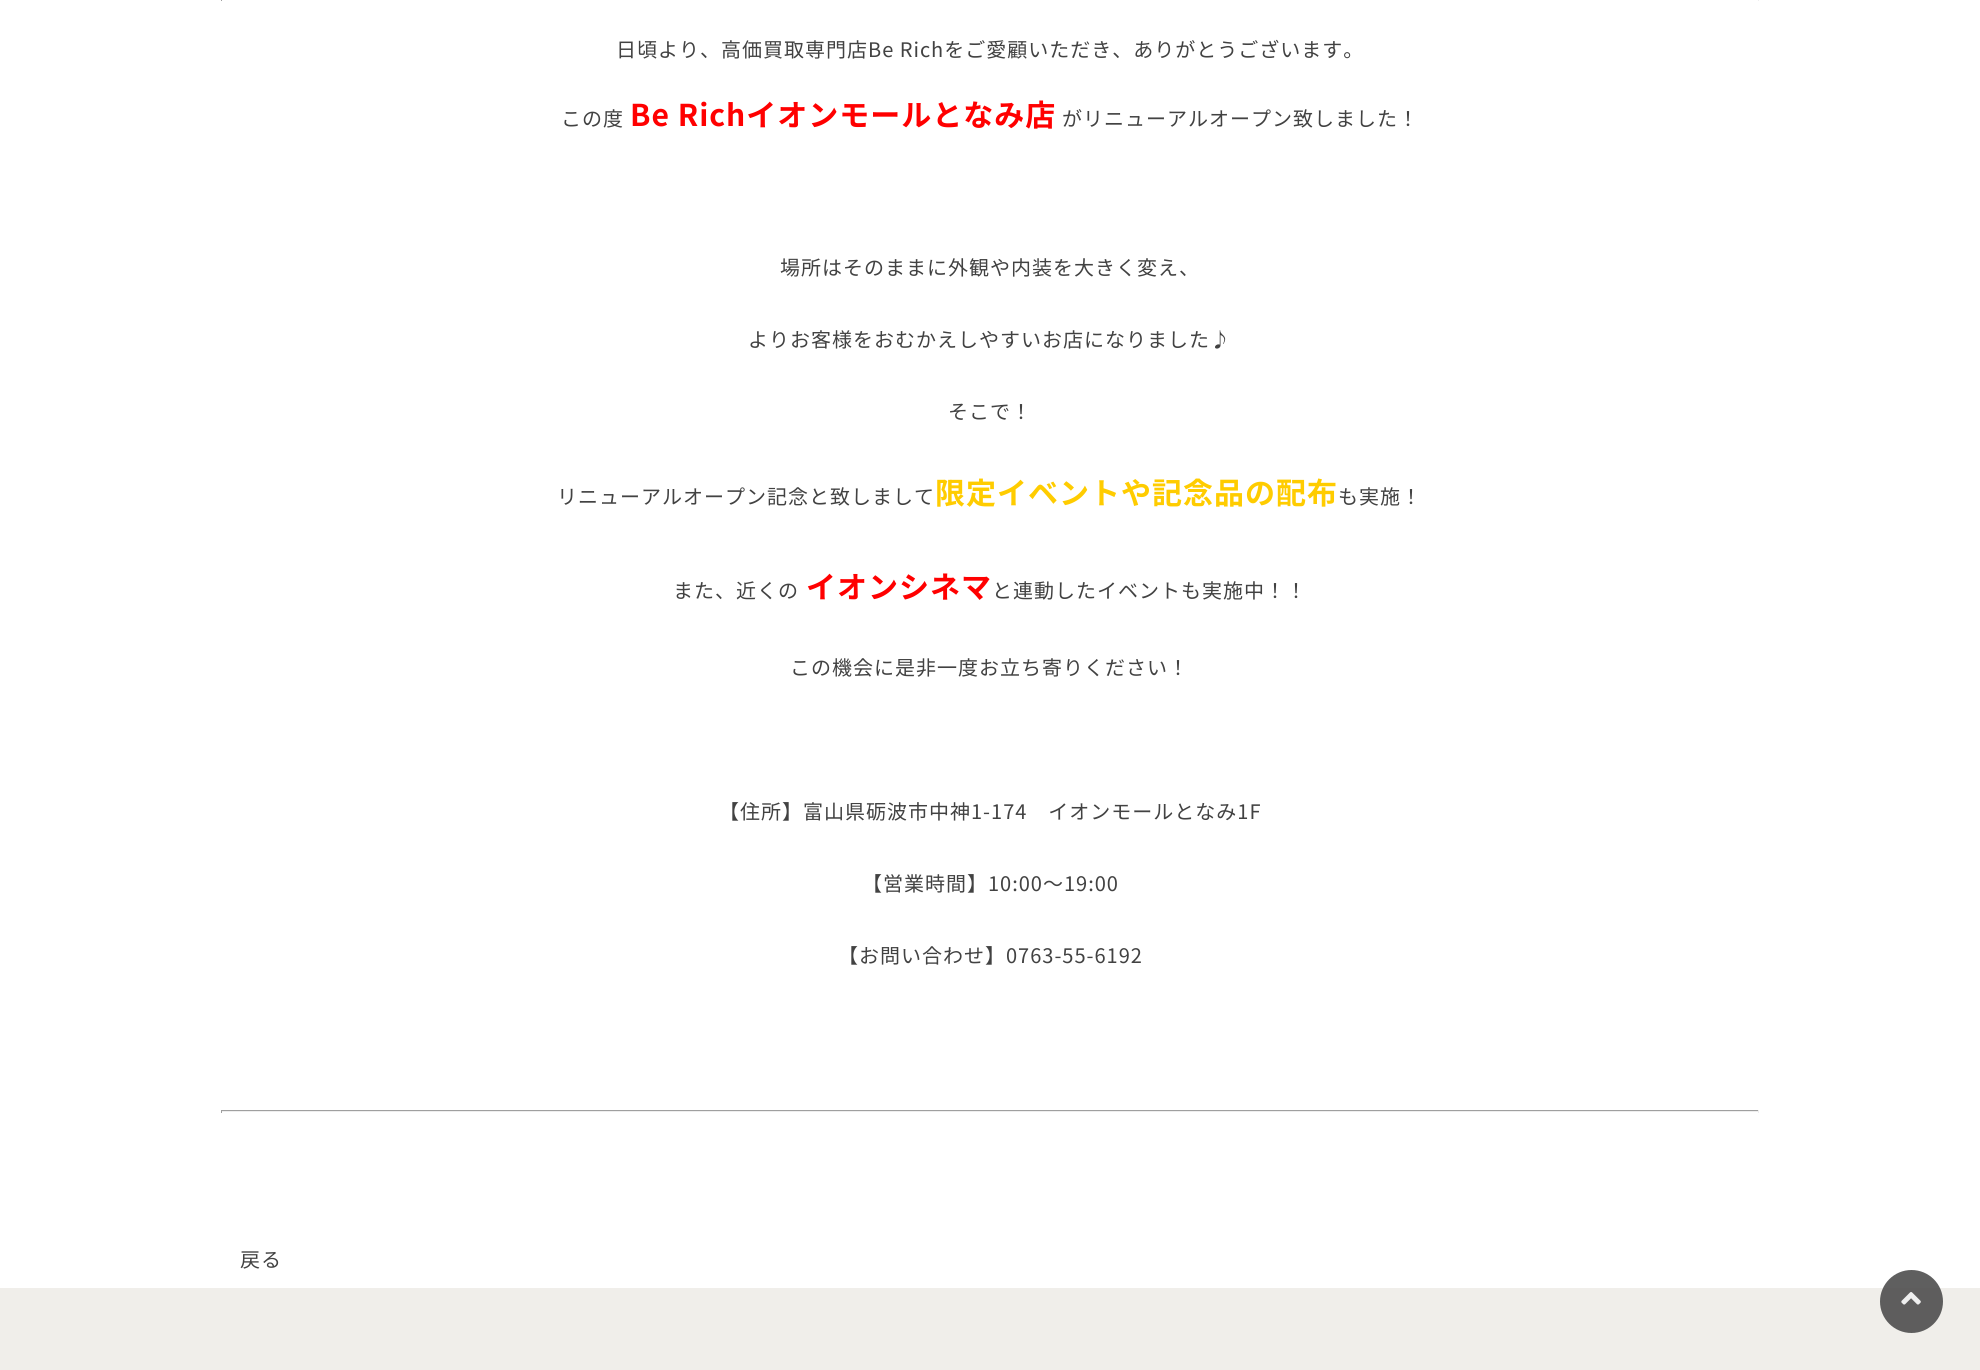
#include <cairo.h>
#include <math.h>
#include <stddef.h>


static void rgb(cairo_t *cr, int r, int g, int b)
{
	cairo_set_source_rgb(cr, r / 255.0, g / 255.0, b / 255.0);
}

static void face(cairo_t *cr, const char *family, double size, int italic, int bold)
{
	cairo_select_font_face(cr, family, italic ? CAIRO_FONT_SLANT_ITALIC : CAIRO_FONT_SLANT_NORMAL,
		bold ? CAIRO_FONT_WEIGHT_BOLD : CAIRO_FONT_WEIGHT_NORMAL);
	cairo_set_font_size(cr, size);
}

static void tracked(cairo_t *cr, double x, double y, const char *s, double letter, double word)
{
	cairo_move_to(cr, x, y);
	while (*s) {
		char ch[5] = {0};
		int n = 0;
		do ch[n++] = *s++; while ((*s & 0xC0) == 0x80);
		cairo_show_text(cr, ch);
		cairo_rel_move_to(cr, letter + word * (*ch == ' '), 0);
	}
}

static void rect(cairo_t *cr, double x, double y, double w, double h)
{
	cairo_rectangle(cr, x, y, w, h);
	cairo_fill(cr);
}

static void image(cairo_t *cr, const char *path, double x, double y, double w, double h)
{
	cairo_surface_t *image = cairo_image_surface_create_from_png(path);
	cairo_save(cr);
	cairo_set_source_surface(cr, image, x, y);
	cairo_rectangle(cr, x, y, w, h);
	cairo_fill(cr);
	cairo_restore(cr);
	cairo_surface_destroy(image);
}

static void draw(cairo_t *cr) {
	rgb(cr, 255, 255, 255);
	cairo_paint(cr);
	rgb(cr, 238, 238, 238);
	rect(cr, 1758, 0, 1, 1);
	rgb(cr, 159, 159, 159);
	rect(cr, 221, 0, 1, 1);
	face(cr, "Noto Sans JP", 20, 0, 0);
	rgb(cr, 66, 66, 66);
	tracked(cr, 616, 57, "日頃より、高価買取専門店Be Richをご愛顧いただき、ありがとうございます。", 1, 0);
	tracked(cr, 561, 126, "この度", 1, 0);
	face(cr, "Noto Sans JP", 30, 0, 1);
	rgb(cr, 255, 0, 0);
	tracked(cr, 630, 126, "Be Richイオンモールとなみ店", 1, 0);
	face(cr, "Noto Sans JP", 20, 0, 0);
	rgb(cr, 66, 66, 66);
	tracked(cr, 1062, 126, "がリニューアルオープン致しました！", 1, 0);
	tracked(cr, 780, 275, "場所はそのままに外観や内装を大きく変え、", 1, 0);
	tracked(cr, 748, 347, "よりお客様をおむかえしやすいお店になりました♪", 1, 0);
	tracked(cr, 948, 419, "そこで！", 1, 0);
	tracked(cr, 557, 504, "リニューアルオープン記念と致しまして", 1, 0);
	face(cr, "Noto Sans JP", 30, 0, 1);
	rgb(cr, 255, 204, 0);
	tracked(cr, 935, 504, "限定イベントや記念品の配布", 1, 0);
	face(cr, "Noto Sans JP", 20, 0, 0);
	rgb(cr, 66, 66, 66);
	tracked(cr, 1338, 504, "も実施！", 1, 0);
	tracked(cr, 673, 598, "また、近くの", 1, 0);
	face(cr, "Noto Sans JP", 30, 0, 1);
	rgb(cr, 255, 0, 0);
	tracked(cr, 806, 598, "イオンシネマ", 1, 0);
	face(cr, "Noto Sans JP", 20, 0, 0);
	rgb(cr, 66, 66, 66);
	tracked(cr, 992, 598, "と連動したイベントも実施中！！", 1, 0);
	tracked(cr, 790, 675, "この機会に是非一度お立ち寄りください！", 1, 0);
	tracked(cr, 719, 819, "【住所】富山県砺波市中神1-174　イオンモールとなみ1F", 1, 0);
	tracked(cr, 862, 891, "【営業時間】10:00～19:00", 1, 0);
	tracked(cr, 838, 963, "【お問い合わせ】0763-55-6192", 1, 0);
	rgb(cr, 159, 159, 159);
	rect(cr, 221, 1110, 1538, 1);
	rgb(cr, 238, 238, 238);
	rect(cr, 1758, 1110, 1, 3);
	rect(cr, 221, 1111, 1538, 1);
	rgb(cr, 159, 159, 159);
	rect(cr, 221, 1110, 1, 3);
	rgb(cr, 66, 66, 66);
	tracked(cr, 240, 1267, "戻る", 1, 0);
	rgb(cr, 240, 238, 234);
	rect(cr, 0, 1288, 1980, 82);
	cairo_set_source_rgba(cr, 0.306, 0.306, 0.306, 0.9);
	cairo_new_path(cr);
	cairo_arc(cr, 1911.5, 1301.5, 31.5, 0, 2 * M_PI);
	cairo_fill(cr);
	image(cr, "image0.png", 1901, 1292, 20, 13);
}

int main(void) {
	cairo_surface_t *surface = cairo_image_surface_create(CAIRO_FORMAT_RGB24, 1980, 1370);
	cairo_t *cr = cairo_create(surface);
	cairo_font_options_t *options = cairo_font_options_create();
	cairo_font_options_set_hint_metrics(options, CAIRO_HINT_METRICS_OFF);
	cairo_font_options_set_hint_style(options, CAIRO_HINT_STYLE_NONE);
	cairo_set_font_options(cr, options);
	cairo_set_miter_limit(cr, 4);
	draw(cr);
	cairo_surface_write_to_png(surface, "render.png");
	cairo_font_options_destroy(options);
	cairo_destroy(cr);
	cairo_surface_destroy(surface);
	return 0;
}
